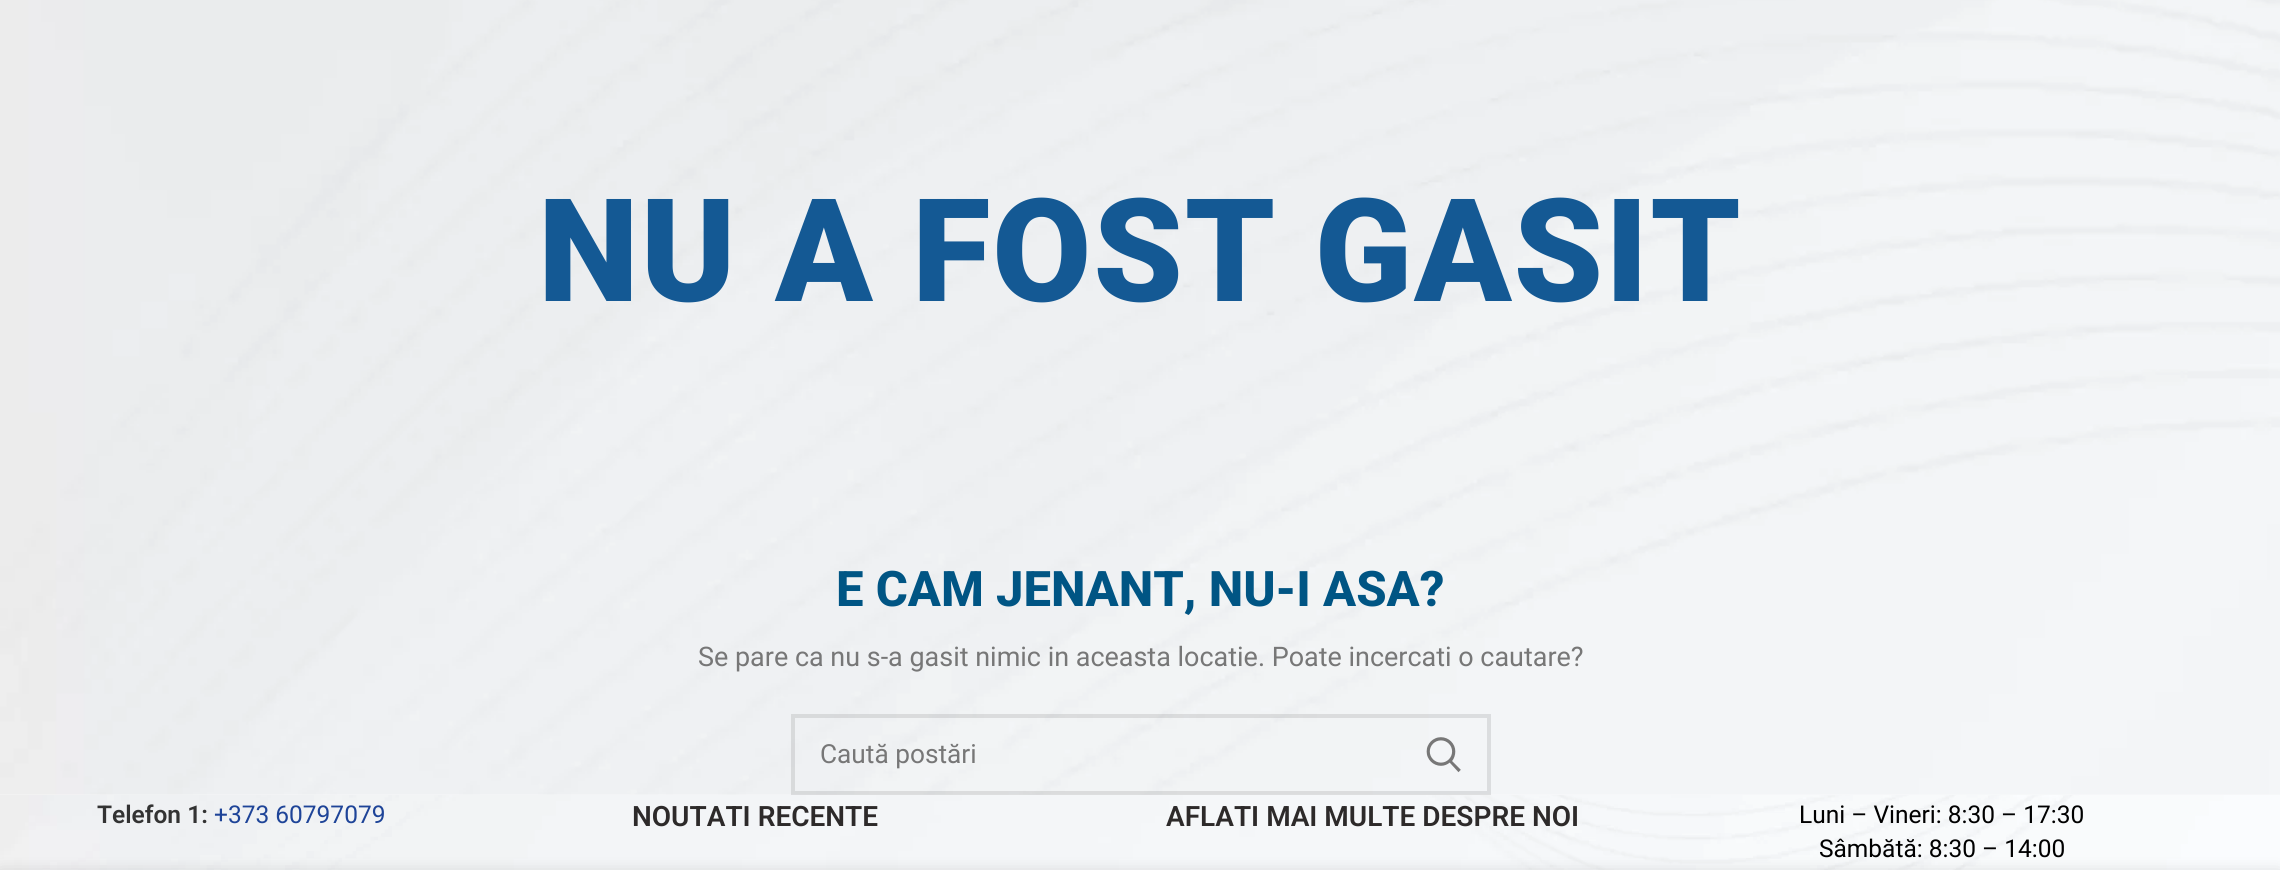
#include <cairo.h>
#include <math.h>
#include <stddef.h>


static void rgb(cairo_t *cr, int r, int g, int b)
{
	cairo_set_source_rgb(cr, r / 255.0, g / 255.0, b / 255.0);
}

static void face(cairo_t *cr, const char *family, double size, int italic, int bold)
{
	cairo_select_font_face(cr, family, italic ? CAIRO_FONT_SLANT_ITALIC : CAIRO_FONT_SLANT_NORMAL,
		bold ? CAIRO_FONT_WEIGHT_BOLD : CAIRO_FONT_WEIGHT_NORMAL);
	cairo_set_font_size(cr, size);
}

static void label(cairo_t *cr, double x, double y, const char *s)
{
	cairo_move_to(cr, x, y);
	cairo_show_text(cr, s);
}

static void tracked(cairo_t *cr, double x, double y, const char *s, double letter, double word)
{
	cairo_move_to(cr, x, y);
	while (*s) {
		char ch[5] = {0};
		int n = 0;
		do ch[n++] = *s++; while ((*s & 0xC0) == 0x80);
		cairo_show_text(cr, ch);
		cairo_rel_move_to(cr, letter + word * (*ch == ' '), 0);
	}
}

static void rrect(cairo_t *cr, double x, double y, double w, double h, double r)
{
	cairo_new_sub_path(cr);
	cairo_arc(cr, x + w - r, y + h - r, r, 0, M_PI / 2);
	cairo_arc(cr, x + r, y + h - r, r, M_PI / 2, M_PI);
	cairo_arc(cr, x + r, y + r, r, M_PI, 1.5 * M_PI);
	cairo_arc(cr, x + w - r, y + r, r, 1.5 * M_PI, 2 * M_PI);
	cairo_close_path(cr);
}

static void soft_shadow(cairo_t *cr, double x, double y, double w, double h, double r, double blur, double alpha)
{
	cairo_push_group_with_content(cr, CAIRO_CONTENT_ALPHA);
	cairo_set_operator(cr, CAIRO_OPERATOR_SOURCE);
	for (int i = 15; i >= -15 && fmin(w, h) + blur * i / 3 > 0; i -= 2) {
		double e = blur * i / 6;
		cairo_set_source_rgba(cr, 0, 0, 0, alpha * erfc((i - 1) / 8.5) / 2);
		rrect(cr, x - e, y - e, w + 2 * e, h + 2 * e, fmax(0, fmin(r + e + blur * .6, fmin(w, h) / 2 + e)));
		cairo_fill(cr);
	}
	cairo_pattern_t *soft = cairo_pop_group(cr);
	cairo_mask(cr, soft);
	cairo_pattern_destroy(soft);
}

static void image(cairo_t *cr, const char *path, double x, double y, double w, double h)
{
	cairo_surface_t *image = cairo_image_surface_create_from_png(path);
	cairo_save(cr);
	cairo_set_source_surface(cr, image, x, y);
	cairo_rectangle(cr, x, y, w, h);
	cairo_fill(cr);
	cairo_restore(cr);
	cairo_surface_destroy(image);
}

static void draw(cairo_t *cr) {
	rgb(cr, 255, 255, 255);
	cairo_paint(cr);
	image(cr, "image0.png", 0, 0, 2280, 795);
	face(cr, "Roboto Black", 143.5, 0, 0);
	rgb(cr, 20, 89, 148);
	tracked(cr, 538, 301, "NU A FOST GASIT", 1.75, 0);
	face(cr, "Roboto ExtraBold", 49, 0, 0);
	rgb(cr, 0, 85, 132);
	label(cr, 836, 606, "E CAM JENANT, NU-I ASA?");
	face(cr, "Roboto", 26.95, 0, 0);
	rgb(cr, 119, 119, 119);
	label(cr, 698, 666, "Se pare ca nu s-a gasit nimic in aceasta locatie. Poate incercati o cautare?");
	cairo_rectangle(cr, 793, 716, 696, 77);
	cairo_set_source_rgba(cr, 0.506, 0.506, 0.506, 0.2);
	cairo_set_line_width(cr, 4);
	cairo_stroke(cr);
	face(cr, "Roboto", 26.25, 0, 0);
	rgb(cr, 119, 119, 119);
	label(cr, 820, 763, "Caută postări");
	image(cr, "image1.png", 1426, 737, 35, 36);
	image(cr, "image2.png", 0, 795, 2280, 75);
	face(cr, "Roboto SemiBold", 24.5, 0, 0);
	rgb(cr, 51, 51, 51);
	label(cr, 97, 823, "Telefon 1:");
	face(cr, "Roboto", 24.5, 0, 0);
	rgb(cr, 30, 68, 152);
	label(cr, 214, 823, "+373 60797079");
	face(cr, "Roboto SemiBold", 28, 0, 0);
	rgb(cr, 45, 42, 42);
	label(cr, 632, 826, "NOUTATI RECENTE");
	label(cr, 1166, 826, "AFLATI MAI MULTE DESPRE NOI");
	face(cr, "Roboto", 24.5, 0, 0);
	rgb(cr, 0, 0, 0);
	label(cr, 1799, 823, "Luni – Vineri: 8:30 – 17:30");
	label(cr, 1819, 857, "Sâmbătă: 8:30 – 14:00");
	rgb(cr, 0, 0, 0);
	soft_shadow(cr, 0, 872, 2280, 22, 0, 8, 0.14);
}

int main(void) {
	cairo_surface_t *surface = cairo_image_surface_create(CAIRO_FORMAT_RGB24, 2280, 870);
	cairo_t *cr = cairo_create(surface);
	cairo_font_options_t *options = cairo_font_options_create();
	cairo_font_options_set_hint_metrics(options, CAIRO_HINT_METRICS_OFF);
	cairo_font_options_set_hint_style(options, CAIRO_HINT_STYLE_NONE);
	cairo_set_font_options(cr, options);
	cairo_set_miter_limit(cr, 4);
	draw(cr);
	cairo_surface_write_to_png(surface, "render.png");
	cairo_font_options_destroy(options);
	cairo_destroy(cr);
	cairo_surface_destroy(surface);
	return 0;
}
